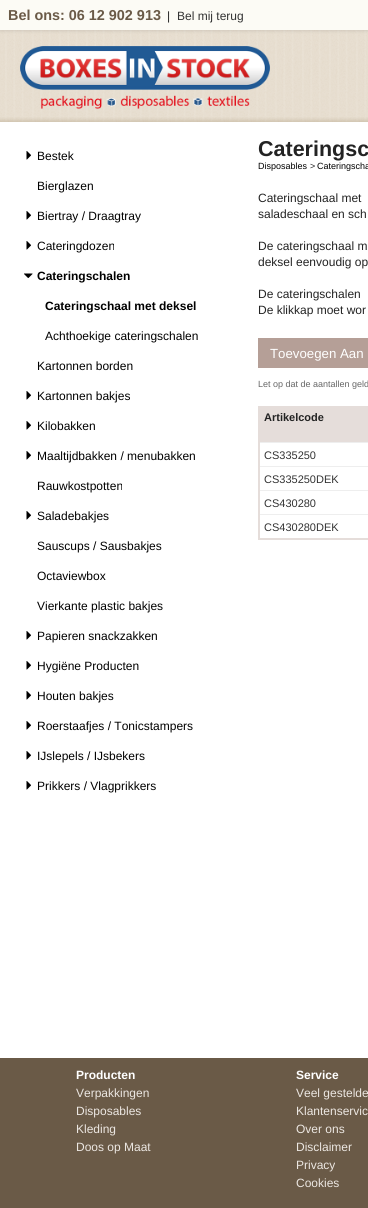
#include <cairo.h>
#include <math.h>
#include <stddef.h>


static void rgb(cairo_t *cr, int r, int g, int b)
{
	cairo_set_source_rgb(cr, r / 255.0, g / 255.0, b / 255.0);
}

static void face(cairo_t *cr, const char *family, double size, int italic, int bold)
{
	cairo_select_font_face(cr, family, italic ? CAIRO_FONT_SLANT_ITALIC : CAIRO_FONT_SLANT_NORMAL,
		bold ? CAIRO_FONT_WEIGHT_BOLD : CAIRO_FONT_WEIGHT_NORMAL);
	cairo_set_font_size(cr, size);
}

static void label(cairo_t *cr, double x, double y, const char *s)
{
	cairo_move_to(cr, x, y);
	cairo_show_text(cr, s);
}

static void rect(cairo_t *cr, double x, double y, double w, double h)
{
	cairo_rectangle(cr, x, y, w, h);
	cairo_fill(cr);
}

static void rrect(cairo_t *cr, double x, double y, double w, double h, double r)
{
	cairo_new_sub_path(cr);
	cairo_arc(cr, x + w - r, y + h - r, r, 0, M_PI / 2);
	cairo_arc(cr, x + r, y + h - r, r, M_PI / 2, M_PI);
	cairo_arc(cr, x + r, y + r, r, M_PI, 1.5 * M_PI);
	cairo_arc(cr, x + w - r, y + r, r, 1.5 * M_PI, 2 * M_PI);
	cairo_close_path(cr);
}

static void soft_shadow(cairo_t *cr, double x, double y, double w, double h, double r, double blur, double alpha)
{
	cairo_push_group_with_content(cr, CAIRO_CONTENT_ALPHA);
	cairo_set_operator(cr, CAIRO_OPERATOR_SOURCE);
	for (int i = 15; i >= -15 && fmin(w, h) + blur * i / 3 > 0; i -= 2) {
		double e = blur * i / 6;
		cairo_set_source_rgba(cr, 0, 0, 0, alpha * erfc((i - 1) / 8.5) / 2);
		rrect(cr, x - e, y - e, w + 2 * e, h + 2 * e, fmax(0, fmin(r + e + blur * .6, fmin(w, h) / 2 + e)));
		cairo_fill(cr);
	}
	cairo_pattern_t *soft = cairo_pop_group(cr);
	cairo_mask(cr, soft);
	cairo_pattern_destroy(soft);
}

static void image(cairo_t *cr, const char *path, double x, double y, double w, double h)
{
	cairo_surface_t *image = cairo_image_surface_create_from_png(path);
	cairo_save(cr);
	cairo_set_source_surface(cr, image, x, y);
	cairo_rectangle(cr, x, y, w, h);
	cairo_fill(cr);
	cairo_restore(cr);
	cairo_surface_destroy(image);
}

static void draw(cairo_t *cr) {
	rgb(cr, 255, 255, 255);
	cairo_paint(cr);
	image(cr, "image0.png", 0, 30, 368, 92);
	rgb(cr, 0, 0, 0);
	soft_shadow(cr, 0, 1, 368, 30, 0, 1.5, 0.1);
	rgb(cr, 252, 251, 245);
	rect(cr, 0, 0, 368, 30);
	face(cr, "Liberation Sans", 14.4, 0, 1);
	rgb(cr, 106, 90, 71);
	label(cr, 8, 20, "Bel ons: 06 12 902 913");
	face(cr, "Liberation Sans", 12, 0, 0);
	rgb(cr, 35, 35, 35);
	label(cr, 167, 20, "|");
	rgb(cr, 51, 51, 51);
	label(cr, 177, 20, "Bel mij terug");
	image(cr, "image1.png", 20, 46, 250, 63);
	image(cr, "image2.png", 26, 151, 5, 9);
	rgb(cr, 0, 0, 0);
	label(cr, 37, 160, "Bestek");
	label(cr, 37, 190, "Bierglazen");
	image(cr, "image2.png", 26, 211, 5, 9);
	label(cr, 37, 220, "Biertray / Draagtray");
	image(cr, "image2.png", 26, 241, 5, 9);
	label(cr, 37, 250, "Cateringdozen");
	image(cr, "image3.png", 24, 273, 9, 5);
	face(cr, "Liberation Sans", 12, 0, 1);
	label(cr, 37, 280, "Cateringschalen");
	label(cr, 45, 310, "Cateringschaal met deksel");
	face(cr, "Liberation Sans", 12, 0, 0);
	label(cr, 45, 340, "Achthoekige cateringschalen");
	label(cr, 37, 370, "Kartonnen borden");
	image(cr, "image2.png", 26, 391, 5, 9);
	label(cr, 37, 400, "Kartonnen bakjes");
	image(cr, "image2.png", 26, 421, 5, 9);
	label(cr, 37, 430, "Kilobakken");
	image(cr, "image2.png", 26, 451, 5, 9);
	label(cr, 37, 460, "Maaltijdbakken / menubakken");
	label(cr, 37, 490, "Rauwkostpotten");
	image(cr, "image2.png", 26, 511, 5, 9);
	label(cr, 37, 520, "Saladebakjes");
	label(cr, 37, 550, "Sauscups / Sausbakjes");
	label(cr, 37, 580, "Octaviewbox");
	label(cr, 37, 610, "Vierkante plastic bakjes");
	image(cr, "image2.png", 26, 631, 5, 9);
	label(cr, 37, 640, "Papieren snackzakken");
	image(cr, "image2.png", 26, 661, 5, 9);
	label(cr, 37, 670, "Hygiëne Producten");
	image(cr, "image2.png", 26, 691, 5, 9);
	label(cr, 37, 700, "Houten bakjes");
	image(cr, "image2.png", 26, 721, 5, 9);
	label(cr, 37, 730, "Roerstaafjes / Tonicstampers");
	image(cr, "image2.png", 26, 751, 5, 9);
	label(cr, 37, 760, "IJslepels / IJsbekers");
	image(cr, "image2.png", 26, 781, 5, 9);
	label(cr, 37, 790, "Prikkers / Vlagprikkers");
	face(cr, "Liberation Sans", 21.5, 0, 1);
	rgb(cr, 35, 35, 35);
	label(cr, 258, 156, "Cateringsc");
	face(cr, "Liberation Sans", 9, 0, 0);
	rgb(cr, 0, 0, 0);
	label(cr, 258, 169, "Disposables");
	rgb(cr, 35, 35, 35);
	label(cr, 310, 169, ">");
	rgb(cr, 0, 0, 0);
	label(cr, 317, 169, "Cateringscha");
	face(cr, "Liberation Sans", 12, 0, 0);
	rgb(cr, 35, 35, 35);
	label(cr, 258, 202, "Cateringschaal met");
	label(cr, 258, 218, "saladeschaal en sch");
	label(cr, 258, 250, "De cateringschaal m");
	label(cr, 258, 266, "deksel eenvoudig op");
	label(cr, 258, 298, "De cateringschalen");
	label(cr, 258, 314, "De klikkap moet wor");
	rgb(cr, 181, 159, 151);
	rect(cr, 258, 338, 110, 30);
	face(cr, "Liberation Sans", 13.25, 0, 0);
	rgb(cr, 255, 255, 255);
	label(cr, 270, 358, "Toevoegen Aan");
	face(cr, "Liberation Sans", 9, 0, 0);
	rgb(cr, 102, 102, 102);
	label(cr, 258, 387, "Let op dat de aantallen geld");
	rgb(cr, 229, 221, 218);
	rect(cr, 258, 406, 110, 2);
	rect(cr, 258, 538, 110, 2);
	rgb(cr, 238, 238, 238);
	rect(cr, 259, 442, 109, 1);
	rect(cr, 259, 466, 109, 1);
	rect(cr, 259, 490, 109, 1);
	rect(cr, 259, 514, 109, 1);
	rgb(cr, 229, 221, 218);
	rect(cr, 258, 406, 2, 134);
	rect(cr, 260, 408, 108, 34);
	face(cr, "Liberation Sans", 11, 0, 1);
	rgb(cr, 35, 35, 35);
	label(cr, 264, 421, "Artikelcode");
	face(cr, "Liberation Sans", 11, 0, 0);
	rgb(cr, 51, 51, 51);
	label(cr, 264, 459, "CS335250");
	label(cr, 264, 483, "CS335250DEK");
	label(cr, 264, 507, "CS430280");
	label(cr, 264, 531, "CS430280DEK");
	rgb(cr, 106, 90, 71);
	rect(cr, 0, 1058, 368, 150);
	face(cr, "Liberation Sans", 12, 0, 1);
	rgb(cr, 255, 255, 255);
	label(cr, 76, 1079, "Producten");
	face(cr, "Liberation Sans", 12, 0, 0);
	rgb(cr, 236, 231, 226);
	label(cr, 76, 1097, "Verpakkingen");
	label(cr, 76, 1115, "Disposables");
	label(cr, 76, 1133, "Kleding");
	label(cr, 76, 1151, "Doos op Maat");
	face(cr, "Liberation Sans", 12, 0, 1);
	rgb(cr, 255, 255, 255);
	label(cr, 296, 1079, "Service");
	face(cr, "Liberation Sans", 12, 0, 0);
	rgb(cr, 236, 231, 226);
	label(cr, 296, 1097, "Veel gestelde");
	label(cr, 296, 1115, "Klantenservic");
	label(cr, 296, 1133, "Over ons");
	label(cr, 296, 1151, "Disclaimer");
	label(cr, 296, 1169, "Privacy");
	label(cr, 296, 1187, "Cookies");
}

int main(void) {
	cairo_surface_t *surface = cairo_image_surface_create(CAIRO_FORMAT_RGB24, 368, 1208);
	cairo_t *cr = cairo_create(surface);
	cairo_font_options_t *options = cairo_font_options_create();
	cairo_font_options_set_hint_metrics(options, CAIRO_HINT_METRICS_OFF);
	cairo_font_options_set_hint_style(options, CAIRO_HINT_STYLE_NONE);
	cairo_set_font_options(cr, options);
	cairo_set_miter_limit(cr, 4);
	draw(cr);
	cairo_surface_write_to_png(surface, "render.png");
	cairo_font_options_destroy(options);
	cairo_destroy(cr);
	cairo_surface_destroy(surface);
	return 0;
}
